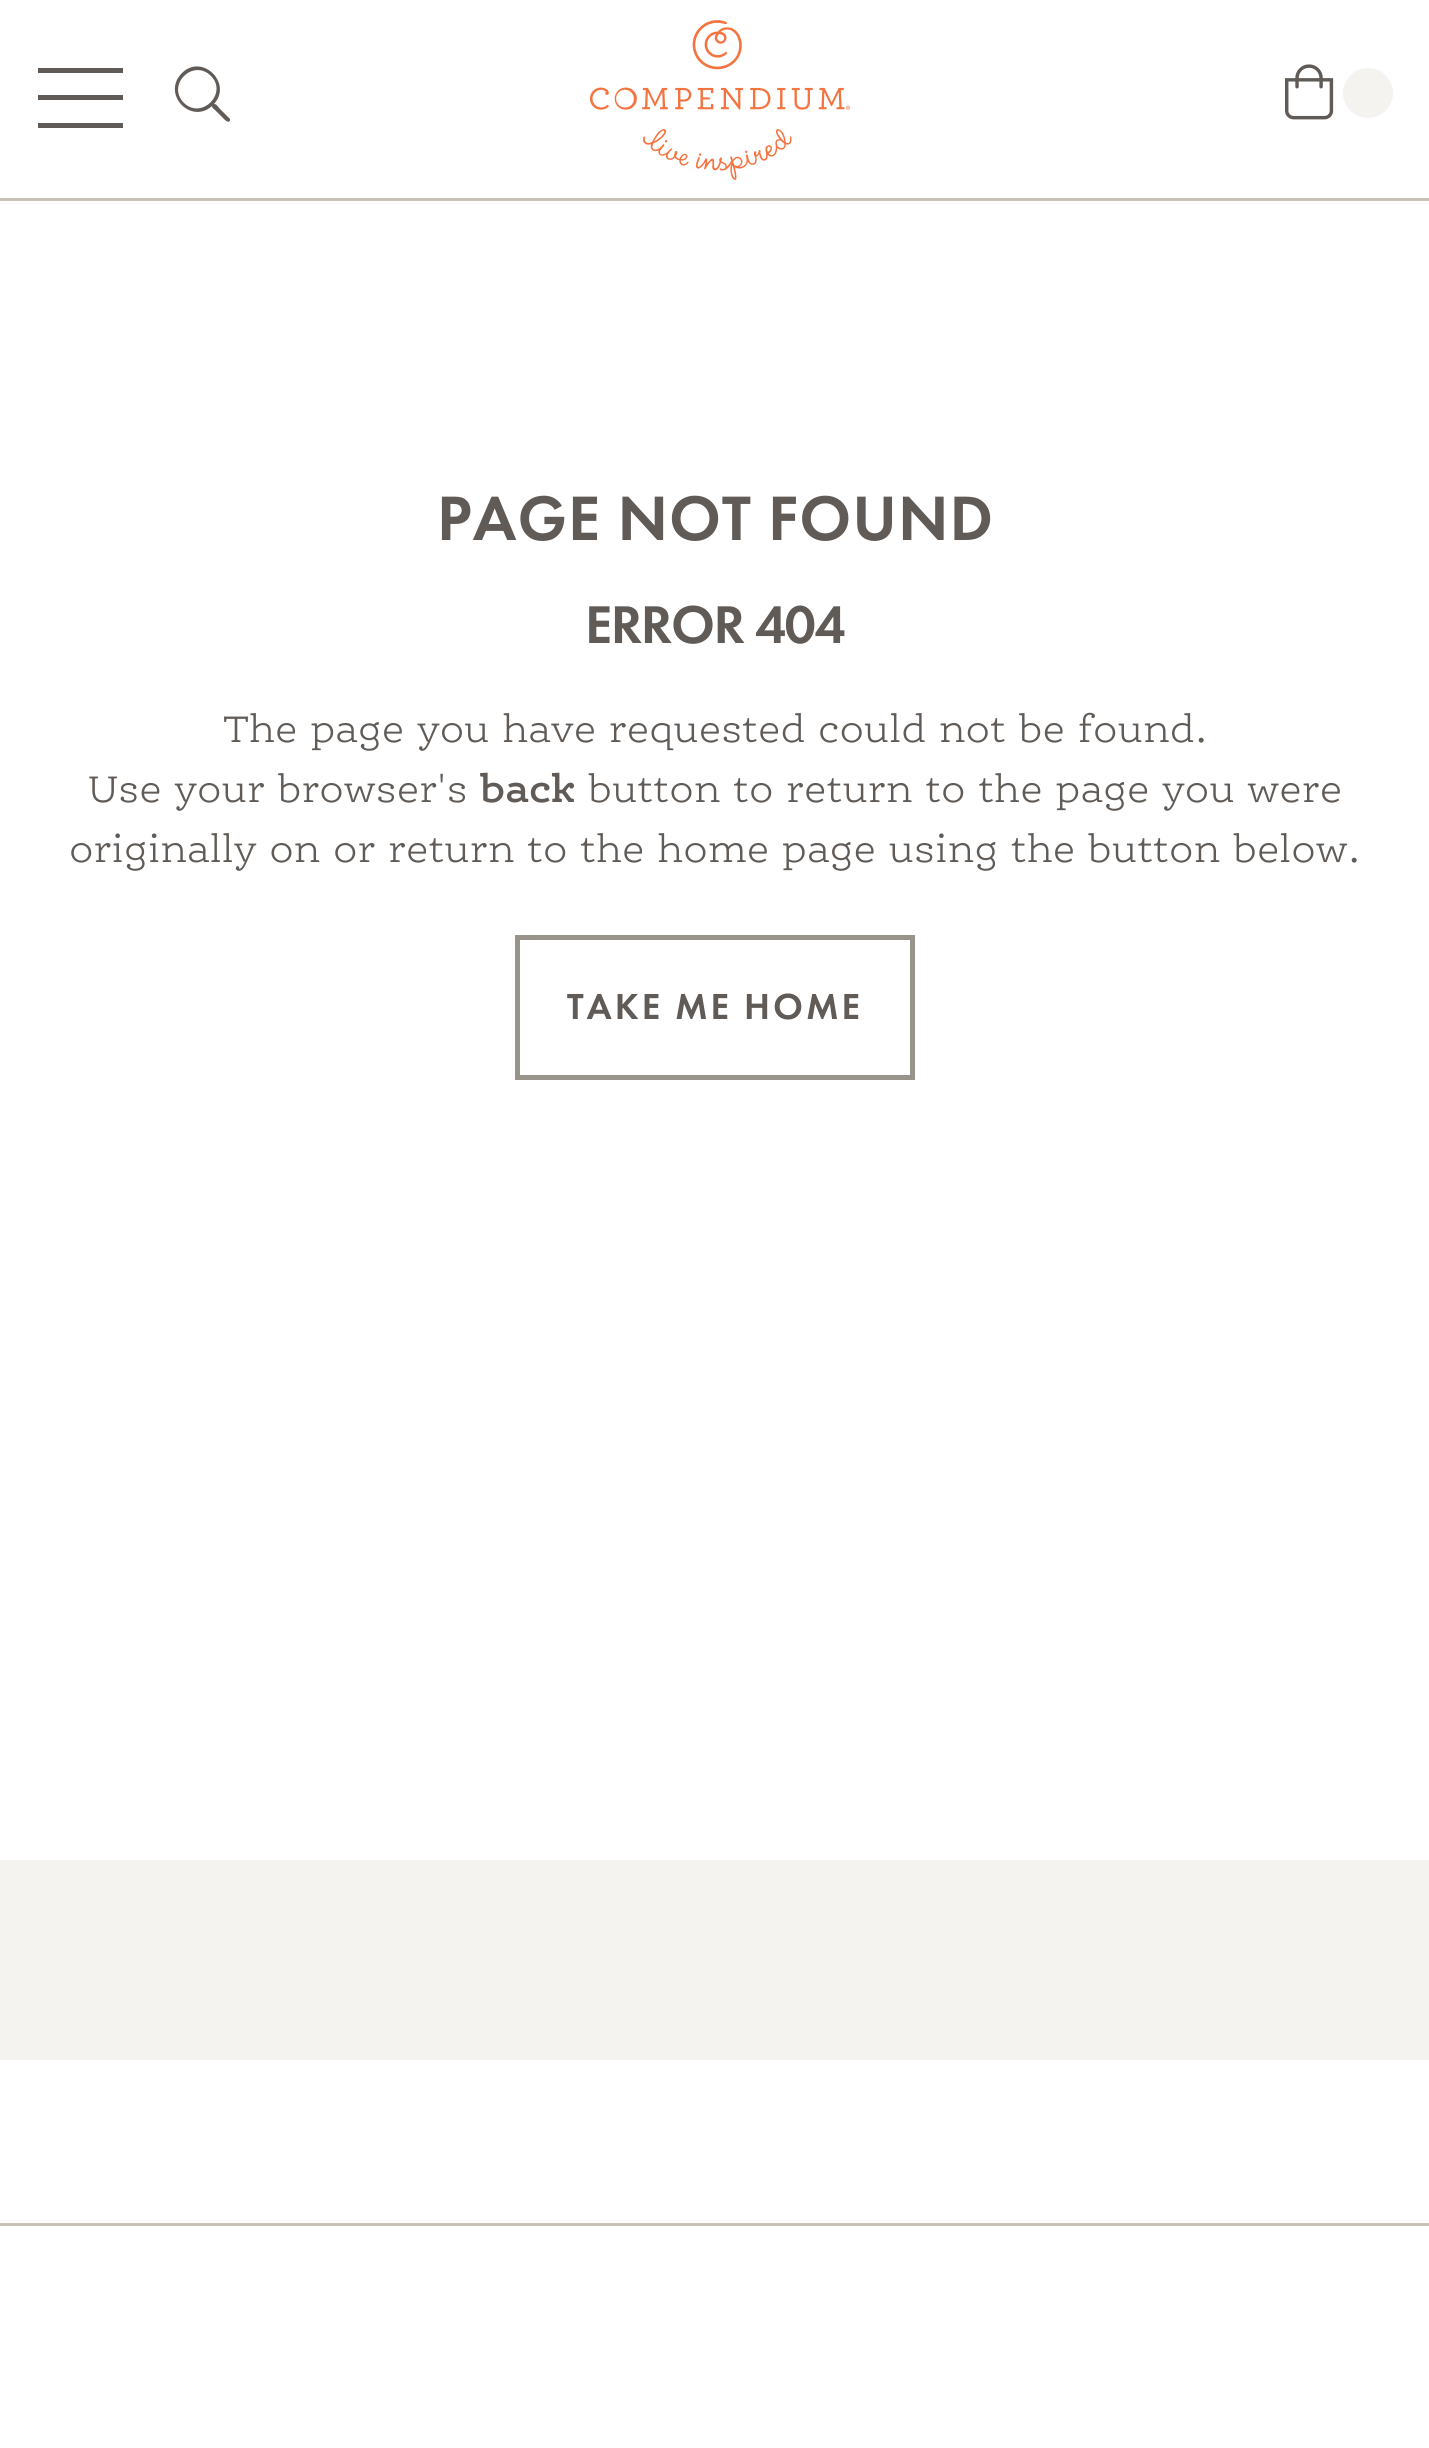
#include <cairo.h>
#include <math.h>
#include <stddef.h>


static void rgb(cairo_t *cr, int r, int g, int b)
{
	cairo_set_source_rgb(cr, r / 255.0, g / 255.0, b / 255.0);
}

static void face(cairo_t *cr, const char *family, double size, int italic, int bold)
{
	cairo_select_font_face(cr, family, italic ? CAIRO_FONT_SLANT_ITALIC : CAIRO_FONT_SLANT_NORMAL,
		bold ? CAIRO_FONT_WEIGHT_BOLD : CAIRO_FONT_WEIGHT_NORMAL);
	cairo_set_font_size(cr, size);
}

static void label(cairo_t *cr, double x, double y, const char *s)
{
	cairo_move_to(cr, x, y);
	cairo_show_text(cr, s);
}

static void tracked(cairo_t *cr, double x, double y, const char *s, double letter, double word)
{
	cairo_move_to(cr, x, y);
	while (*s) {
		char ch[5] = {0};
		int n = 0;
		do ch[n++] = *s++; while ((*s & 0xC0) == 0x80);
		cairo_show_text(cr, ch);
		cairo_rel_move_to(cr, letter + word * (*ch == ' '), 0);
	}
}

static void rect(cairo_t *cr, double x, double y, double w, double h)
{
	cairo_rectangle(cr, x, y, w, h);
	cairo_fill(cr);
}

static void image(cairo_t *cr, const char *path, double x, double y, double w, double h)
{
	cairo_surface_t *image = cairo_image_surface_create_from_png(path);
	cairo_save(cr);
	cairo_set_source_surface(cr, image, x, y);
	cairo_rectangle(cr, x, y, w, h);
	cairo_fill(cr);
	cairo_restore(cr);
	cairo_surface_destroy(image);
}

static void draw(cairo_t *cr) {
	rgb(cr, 255, 255, 255);
	cairo_paint(cr);
	rgb(cr, 200, 193, 184);
	rect(cr, 0, 198, 1429, 3);
	rgb(cr, 96, 91, 87);
	rect(cr, 38, 95, 85, 5);
	rect(cr, 38, 68, 85, 5);
	rect(cr, 38, 123, 85, 5);
	cairo_new_path(cr);
	cairo_move_to(cr, 230, 119);
	cairo_line_to(cr, 230, 120);
	cairo_curve_to(cr, 229, 125, 223, 118, 222, 117);
	cairo_line_to(cr, 215, 110);
	cairo_curve_to(cr, 213, 108, 212, 108, 212, 106);
	cairo_curve_to(cr, 191, 125, 161, 94, 182, 73);
	cairo_curve_to(cr, 202, 53, 233, 83, 214, 104);
	cairo_curve_to(cr, 217, 104, 218, 107, 220, 109);
	cairo_close_path(cr);
	cairo_move_to(cr, 184, 103);
	cairo_curve_to(cr, 202, 120, 228, 93, 211, 76);
	cairo_curve_to(cr, 193, 58, 166, 85, 184, 103);
	cairo_close_path(cr);
	cairo_fill(cr);
	image(cr, "image0.png", 590, 20, 260, 160);
	image(cr, "image1.png", 1285, 64, 49, 56);
	rgb(cr, 245, 243, 240);
	cairo_arc(cr, 1368, 93, 25, 0, 2 * M_PI);
	cairo_fill(cr);
	face(cr, "Futura PT Medium", 65, 0, 0);
	rgb(cr, 96, 91, 87);
	tracked(cr, 437, 540, "PAGE NOT FOUND", 1, 0);
	face(cr, "Futura PT Medium", 55, 0, 0);
	tracked(cr, 585, 643, "ERROR 404", -1.5, 0);
	face(cr, "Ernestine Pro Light", 40, 0, 0);
	label(cr, 223, 742, "The page you have requested could not be found.");
	label(cr, 88, 802, "Use your browser's");
	face(cr, "Ernestine Pro SemiBold", 40, 0, 0);
	label(cr, 480, 802, "back");
	face(cr, "Ernestine Pro Light", 40, 0, 0);
	label(cr, 588, 802, "button to return to the page you were");
	label(cr, 69, 862, "originally on or return to the home page using the button below.");
	cairo_rectangle(cr, 517.5, 937.5, 395, 140);
	rgb(cr, 152, 147, 139);
	cairo_set_line_width(cr, 5);
	cairo_stroke(cr);
	face(cr, "Futura PT Medium", 37.5, 0, 0);
	rgb(cr, 96, 91, 87);
	tracked(cr, 567, 1019, "TAKE ME HOME", 3, 0);
	rgb(cr, 245, 243, 240);
	rect(cr, 0, 1860, 1429, 200);
	rgb(cr, 200, 193, 184);
	rect(cr, 0, 2223, 1429, 3);
}

int main(void) {
	cairo_surface_t *surface = cairo_image_surface_create(CAIRO_FORMAT_RGB24, 1429, 2448);
	cairo_t *cr = cairo_create(surface);
	cairo_font_options_t *options = cairo_font_options_create();
	cairo_font_options_set_hint_metrics(options, CAIRO_HINT_METRICS_OFF);
	cairo_font_options_set_hint_style(options, CAIRO_HINT_STYLE_NONE);
	cairo_set_font_options(cr, options);
	cairo_set_miter_limit(cr, 4);
	draw(cr);
	cairo_surface_write_to_png(surface, "render.png");
	cairo_font_options_destroy(options);
	cairo_destroy(cr);
	cairo_surface_destroy(surface);
	return 0;
}
